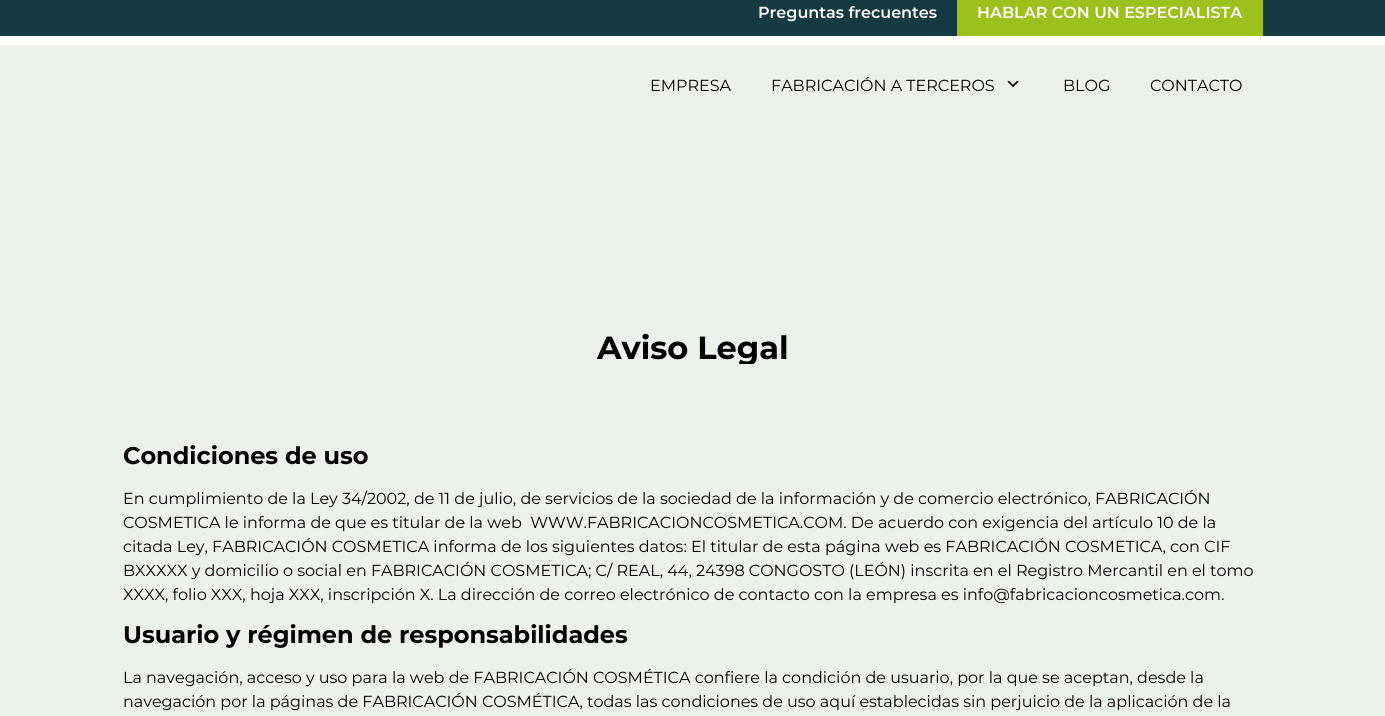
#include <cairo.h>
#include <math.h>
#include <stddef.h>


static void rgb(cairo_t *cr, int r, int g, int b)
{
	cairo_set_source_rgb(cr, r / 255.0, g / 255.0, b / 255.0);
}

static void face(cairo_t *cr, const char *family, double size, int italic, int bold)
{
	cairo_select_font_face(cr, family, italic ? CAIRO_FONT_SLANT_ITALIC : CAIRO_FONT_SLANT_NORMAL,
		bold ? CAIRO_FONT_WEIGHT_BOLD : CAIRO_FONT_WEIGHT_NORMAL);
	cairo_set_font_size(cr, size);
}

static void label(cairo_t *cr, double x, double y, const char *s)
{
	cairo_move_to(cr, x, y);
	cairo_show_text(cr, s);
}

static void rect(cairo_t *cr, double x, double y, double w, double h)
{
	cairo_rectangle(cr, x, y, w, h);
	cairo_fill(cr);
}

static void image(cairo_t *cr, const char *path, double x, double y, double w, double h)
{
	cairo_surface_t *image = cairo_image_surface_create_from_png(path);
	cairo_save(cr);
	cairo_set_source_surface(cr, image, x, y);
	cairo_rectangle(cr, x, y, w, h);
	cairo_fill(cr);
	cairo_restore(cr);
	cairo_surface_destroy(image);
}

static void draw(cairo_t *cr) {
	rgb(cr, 255, 255, 255);
	cairo_paint(cr);
	rgb(cr, 20, 59, 66);
	rect(cr, 0, 0, 1385, 36);
	face(cr, "Montserrat SemiBold", 16, 0, 0);
	rgb(cr, 255, 248, 248);
	label(cr, 758, 18, "Preguntas frecuentes");
	rgb(cr, 157, 192, 28);
	rect(cr, 957, 0, 306, 36);
	rgb(cr, 255, 248, 248);
	label(cr, 977, 18, "HABLAR CON UN ESPECIALISTA");
	rgb(cr, 236, 241, 235);
	rect(cr, 0, 45, 1385, 319);
	face(cr, "Montserrat", 16, 0, 0);
	rgb(cr, 6, 0, 0);
	label(cr, 650, 91, "EMPRESA");
	label(cr, 771, 91, "FABRICACIÓN A TERCEROS");
	image(cr, "image0.png", 1007, 80, 12, 7);
	label(cr, 1063, 91, "BLOG");
	label(cr, 1150, 91, "CONTACTO");
	face(cr, "Montserrat", 32, 0, 1);
	rgb(cr, 0, 1, 2);
	label(cr, 597, 359, "Aviso Legal");
	rgb(cr, 236, 241, 235);
	rect(cr, 0, 364, 1385, 352);
	face(cr, "Montserrat", 24, 0, 1);
	rgb(cr, 6, 0, 0);
	label(cr, 123, 464, "Condiciones de uso");
	face(cr, "Montserrat", 16, 0, 0);
	label(cr, 123, 504, "En cumplimiento de la Ley 34/2002, de 11 de julio, de servicios de la sociedad de la información y de comercio electrónico, FABRICACIÓN");
	label(cr, 123, 528, "COSMETICA le informa de que es titular de la web  WWW.FABRICACIONCOSMETICA.COM. De acuerdo con exigencia del artículo 10 de la");
	label(cr, 123, 552, "citada Ley, FABRICACIÓN COSMETICA informa de los siguientes datos: El titular de esta página web es FABRICACIÓN COSMETICA, con CIF");
	label(cr, 123, 576, "BXXXXX y domicilio o social en FABRICACIÓN COSMETICA; C/ REAL, 44, 24398 CONGOSTO (LEÓN) inscrita en el Registro Mercantil en el tomo");
	label(cr, 123, 600, "XXXX, folio XXX, hoja XXX, inscripción X. La dirección de correo electrónico de contacto con la empresa es info@fabricacioncosmetica.com.");
	face(cr, "Montserrat", 24, 0, 1);
	label(cr, 123, 643, "Usuario y régimen de responsabilidades");
	face(cr, "Montserrat", 16, 0, 0);
	label(cr, 123, 683, "La navegación, acceso y uso para la web de FABRICACIÓN COSMÉTICA confiere la condición de usuario, por la que se aceptan, desde la");
	label(cr, 123, 707, "navegación por la páginas de FABRICACIÓN COSMÉTICA, todas las condiciones de uso aquí establecidas sin perjuicio de la aplicación de la");
}

int main(void) {
	cairo_surface_t *surface = cairo_image_surface_create(CAIRO_FORMAT_RGB24, 1385, 716);
	cairo_t *cr = cairo_create(surface);
	cairo_font_options_t *options = cairo_font_options_create();
	cairo_font_options_set_hint_metrics(options, CAIRO_HINT_METRICS_OFF);
	cairo_font_options_set_hint_style(options, CAIRO_HINT_STYLE_NONE);
	cairo_set_font_options(cr, options);
	cairo_set_miter_limit(cr, 4);
	draw(cr);
	cairo_surface_write_to_png(surface, "render.png");
	cairo_font_options_destroy(options);
	cairo_destroy(cr);
	cairo_surface_destroy(surface);
	return 0;
}
